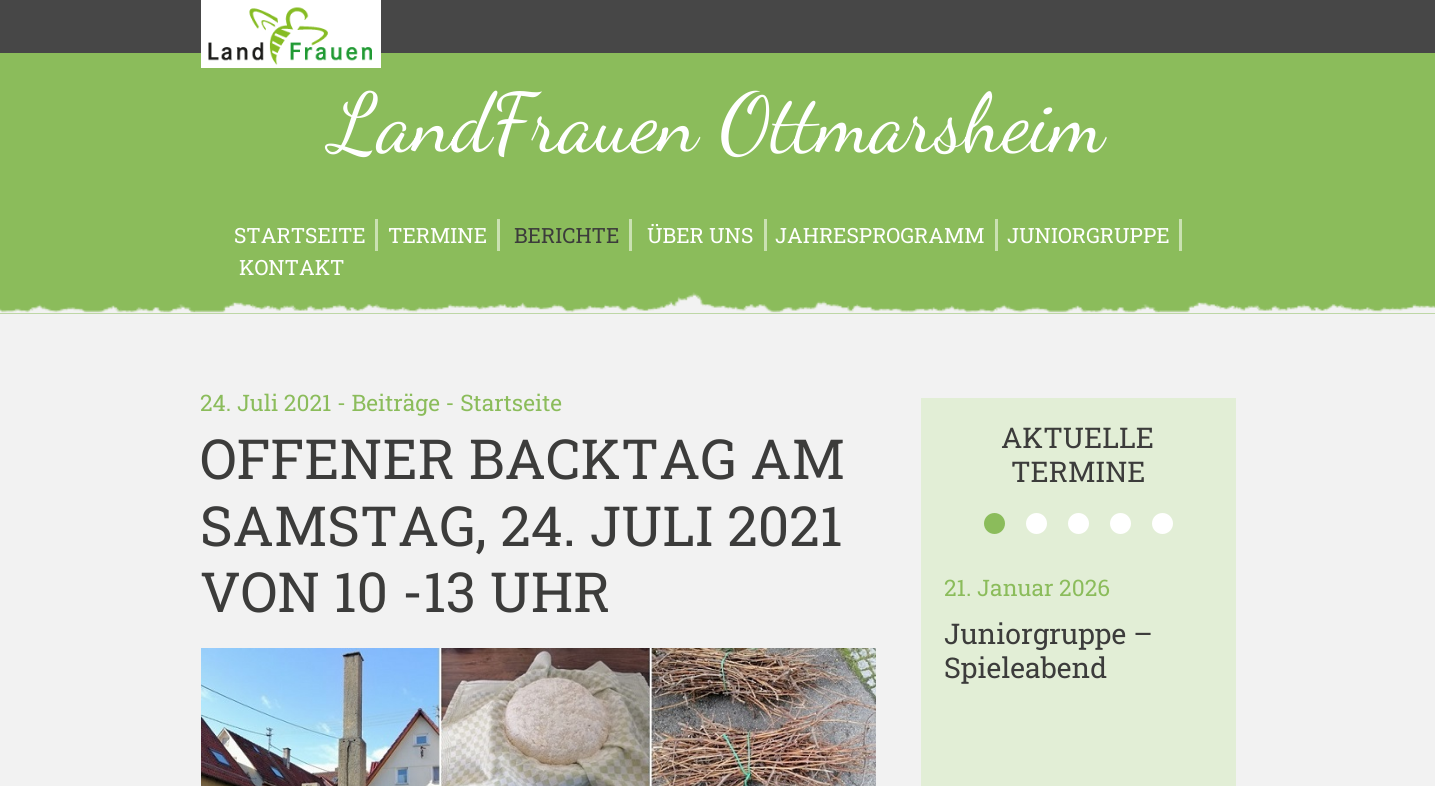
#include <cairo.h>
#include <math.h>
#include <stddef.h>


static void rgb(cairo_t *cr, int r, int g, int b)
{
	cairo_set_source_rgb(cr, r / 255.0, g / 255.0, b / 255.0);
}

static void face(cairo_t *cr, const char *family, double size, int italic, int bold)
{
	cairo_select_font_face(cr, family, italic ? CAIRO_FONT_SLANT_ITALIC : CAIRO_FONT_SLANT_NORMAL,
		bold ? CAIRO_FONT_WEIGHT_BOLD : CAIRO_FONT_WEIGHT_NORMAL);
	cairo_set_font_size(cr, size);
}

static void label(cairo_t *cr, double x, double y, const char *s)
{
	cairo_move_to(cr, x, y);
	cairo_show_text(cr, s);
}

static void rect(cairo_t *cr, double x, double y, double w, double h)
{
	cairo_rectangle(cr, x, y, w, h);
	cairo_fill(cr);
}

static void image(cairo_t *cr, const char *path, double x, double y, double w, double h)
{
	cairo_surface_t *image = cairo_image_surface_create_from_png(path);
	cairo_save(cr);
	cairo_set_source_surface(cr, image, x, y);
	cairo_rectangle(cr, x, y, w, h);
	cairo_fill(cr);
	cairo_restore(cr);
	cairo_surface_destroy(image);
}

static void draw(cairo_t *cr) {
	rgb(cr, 242, 242, 242);
	cairo_paint(cr);
	rgb(cr, 71, 71, 71);
	rect(cr, 0, 0, 1435, 53);
	rgb(cr, 139, 188, 91);
	rect(cr, 0, 53, 1435, 261);
	rgb(cr, 255, 255, 255);
	rect(cr, 201, 0, 180, 68);
	image(cr, "image0.png", 208, 7, 164, 58);
	face(cr, "Dancing Script", 82.5, 0, 0);
	label(cr, 331, 150, "LandFrauen Ottmarsheim");
	image(cr, "image1.png", 0, 292, 1435, 22);
	rgb(cr, 202, 225, 178);
	rect(cr, 375, 219, 3, 32);
	face(cr, "Roboto Slab", 21, 0, 0);
	rgb(cr, 255, 255, 255);
	label(cr, 234, 243, "STARTSEITE");
	rgb(cr, 202, 225, 178);
	rect(cr, 497, 219, 3, 32);
	rgb(cr, 255, 255, 255);
	label(cr, 388, 243, "TERMINE");
	rgb(cr, 202, 225, 178);
	rect(cr, 629, 219, 3, 32);
	rgb(cr, 60, 60, 59);
	label(cr, 514, 243, "BERICHTE");
	rgb(cr, 202, 225, 178);
	rect(cr, 764, 219, 3, 32);
	rgb(cr, 255, 255, 255);
	label(cr, 647, 243, "ÜBER UNS");
	rgb(cr, 202, 225, 178);
	rect(cr, 995, 219, 3, 32);
	rgb(cr, 255, 255, 255);
	label(cr, 775, 243, "JAHRESPROGRAMM");
	rgb(cr, 202, 225, 178);
	rect(cr, 1179, 219, 3, 32);
	rgb(cr, 255, 255, 255);
	label(cr, 1007, 243, "JUNIORGRUPPE");
	label(cr, 239, 275, "KONTAKT");
	face(cr, "Roboto Slab", 22.75, 0, 0);
	rgb(cr, 139, 188, 91);
	label(cr, 200, 411, "24. Juli 2021 - Beiträge - Startseite");
	face(cr, "Roboto Slab", 55.25, 0, 0);
	rgb(cr, 60, 60, 59);
	label(cr, 200, 479, "OFFENER BACKTAG AM");
	label(cr, 200, 546, "SAMSTAG, 24. JULI 2021");
	label(cr, 200, 612, "VON 10 -13 UHR");
	image(cr, "image2.png", 201, 648, 675, 138);
	rgb(cr, 226, 238, 214);
	rect(cr, 921, 398, 315, 388);
	face(cr, "Roboto Slab", 28.5, 0, 0);
	rgb(cr, 60, 60, 59);
	label(cr, 1001, 448, "AKTUELLE");
	label(cr, 1011, 482, "TERMINE");
	rgb(cr, 139, 188, 91);
	cairo_new_path(cr);
	cairo_arc(cr, 994.5, 523.5, 10.5, 0, 2 * M_PI);
	cairo_fill(cr);
	rgb(cr, 255, 255, 255);
	cairo_arc(cr, 1036.5, 523.5, 10.5, 0, 2 * M_PI);
	cairo_fill(cr);
	cairo_arc(cr, 1078.5, 523.5, 10.5, 0, 2 * M_PI);
	cairo_fill(cr);
	cairo_arc(cr, 1120.5, 523.5, 10.5, 0, 2 * M_PI);
	cairo_fill(cr);
	cairo_arc(cr, 1162.5, 523.5, 10.5, 0, 2 * M_PI);
	cairo_fill(cr);
	face(cr, "Roboto Slab", 22.75, 0, 0);
	rgb(cr, 139, 188, 91);
	label(cr, 944, 596, "21. Januar 2026");
	face(cr, "Roboto Slab", 28.5, 0, 0);
	rgb(cr, 60, 60, 59);
	label(cr, 944, 644, "Juniorgruppe –");
	label(cr, 944, 678, "Spieleabend");
}

int main(void) {
	cairo_surface_t *surface = cairo_image_surface_create(CAIRO_FORMAT_RGB24, 1435, 786);
	cairo_t *cr = cairo_create(surface);
	cairo_font_options_t *options = cairo_font_options_create();
	cairo_font_options_set_hint_metrics(options, CAIRO_HINT_METRICS_OFF);
	cairo_font_options_set_hint_style(options, CAIRO_HINT_STYLE_NONE);
	cairo_set_font_options(cr, options);
	cairo_set_miter_limit(cr, 4);
	draw(cr);
	cairo_surface_write_to_png(surface, "render.png");
	cairo_font_options_destroy(options);
	cairo_destroy(cr);
	cairo_surface_destroy(surface);
	return 0;
}
